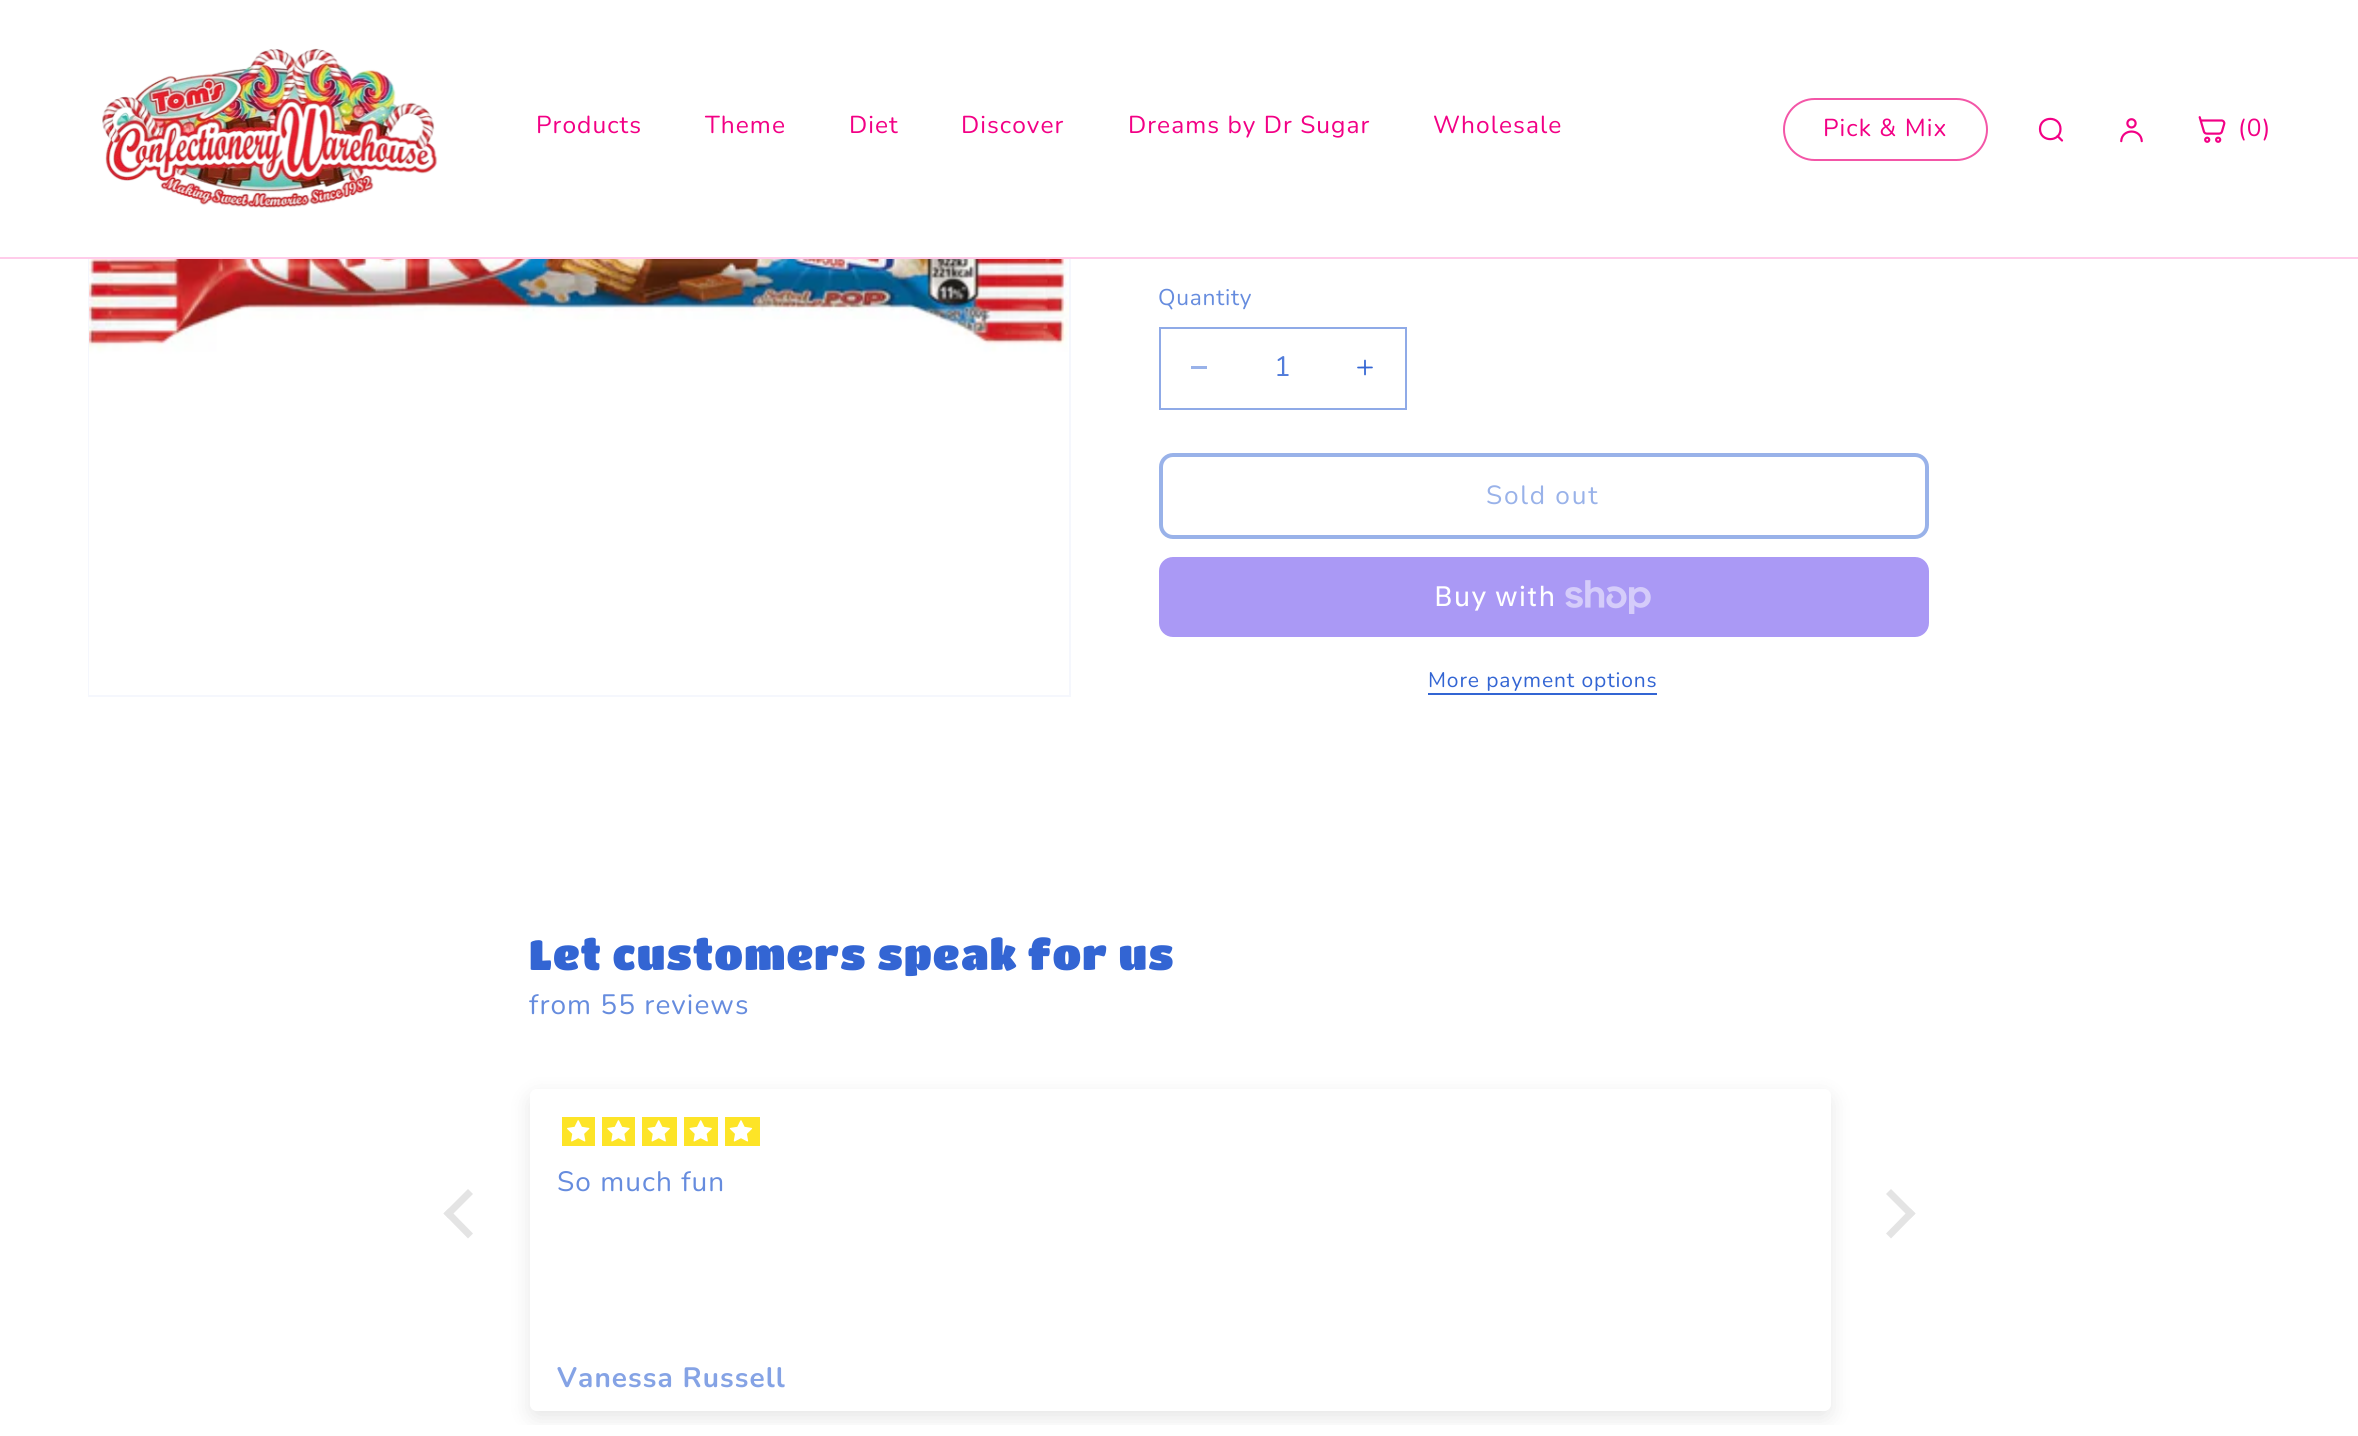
#include <cairo.h>
#include <math.h>
#include <stddef.h>


static void rgb(cairo_t *cr, int r, int g, int b)
{
	cairo_set_source_rgb(cr, r / 255.0, g / 255.0, b / 255.0);
}

static void face(cairo_t *cr, const char *family, double size, int italic, int bold)
{
	cairo_select_font_face(cr, family, italic ? CAIRO_FONT_SLANT_ITALIC : CAIRO_FONT_SLANT_NORMAL,
		bold ? CAIRO_FONT_WEIGHT_BOLD : CAIRO_FONT_WEIGHT_NORMAL);
	cairo_set_font_size(cr, size);
}

static void label(cairo_t *cr, double x, double y, const char *s)
{
	cairo_move_to(cr, x, y);
	cairo_show_text(cr, s);
}

static void tracked(cairo_t *cr, double x, double y, const char *s, double letter, double word)
{
	cairo_move_to(cr, x, y);
	while (*s) {
		char ch[5] = {0};
		int n = 0;
		do ch[n++] = *s++; while ((*s & 0xC0) == 0x80);
		cairo_show_text(cr, ch);
		cairo_rel_move_to(cr, letter + word * (*ch == ' '), 0);
	}
}

static void rect(cairo_t *cr, double x, double y, double w, double h)
{
	cairo_rectangle(cr, x, y, w, h);
	cairo_fill(cr);
}

static void rrect(cairo_t *cr, double x, double y, double w, double h, double r)
{
	cairo_new_sub_path(cr);
	cairo_arc(cr, x + w - r, y + h - r, r, 0, M_PI / 2);
	cairo_arc(cr, x + r, y + h - r, r, M_PI / 2, M_PI);
	cairo_arc(cr, x + r, y + r, r, M_PI, 1.5 * M_PI);
	cairo_arc(cr, x + w - r, y + r, r, 1.5 * M_PI, 2 * M_PI);
	cairo_close_path(cr);
}

static void soft_shadow(cairo_t *cr, double x, double y, double w, double h, double r, double blur, double alpha)
{
	cairo_push_group_with_content(cr, CAIRO_CONTENT_ALPHA);
	cairo_set_operator(cr, CAIRO_OPERATOR_SOURCE);
	for (int i = 15; i >= -15 && fmin(w, h) + blur * i / 3 > 0; i -= 2) {
		double e = blur * i / 6;
		cairo_set_source_rgba(cr, 0, 0, 0, alpha * erfc((i - 1) / 8.5) / 2);
		rrect(cr, x - e, y - e, w + 2 * e, h + 2 * e, fmax(0, fmin(r + e + blur * .6, fmin(w, h) / 2 + e)));
		cairo_fill(cr);
	}
	cairo_pattern_t *soft = cairo_pop_group(cr);
	cairo_mask(cr, soft);
	cairo_pattern_destroy(soft);
}

static void image(cairo_t *cr, const char *path, double x, double y, double w, double h)
{
	cairo_surface_t *image = cairo_image_surface_create_from_png(path);
	cairo_save(cr);
	cairo_set_source_surface(cr, image, x, y);
	cairo_rectangle(cr, x, y, w, h);
	cairo_fill(cr);
	cairo_restore(cr);
	cairo_surface_destroy(image);
}

static void draw(cairo_t *cr) {
	rgb(cr, 255, 255, 255);
	cairo_paint(cr);
	cairo_rectangle(cr, 89, -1, 981, 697);
	rgb(cr, 245, 247, 253);
	cairo_stroke(cr);
	rgb(cr, 255, 255, 255);
	rect(cr, 88, 0, 983, 257);
	rgb(cr, 255, 204, 234);
	rect(cr, 0, 257, 2358, 2);
	image(cr, "image0.png", 102, 48, 336, 160);
	face(cr, "Nunito", 24.5, 0, 0);
	rgb(cr, 242, 0, 133);
	tracked(cr, 536, 133, "Products", 1.05, 0);
	tracked(cr, 705, 133, "Theme", 1.05, 0);
	tracked(cr, 849, 133, "Diet", 1.05, 0);
	tracked(cr, 961, 133, "Discover", 1.05, 0);
	tracked(cr, 1128, 133, "Dreams by Dr Sugar", 1.05, 0);
	tracked(cr, 1433, 133, "Wholesale", 1.05, 0);
	rrect(cr, 1784, 99, 203, 61, 30.5);
	rgb(cr, 243, 86, 167);
	cairo_stroke(cr);
	rgb(cr, 242, 0, 133);
	tracked(cr, 1823, 136, "Pick & Mix", 1.05, 0);
	cairo_new_path(cr);
	cairo_move_to(cr, 2057.5, 136);
	cairo_line_to(cr, 2062, 140.5);
	cairo_move_to(cr, 2060.5, 129);
	cairo_curve_to(cr, 2060.5, 142.5, 2040, 142.5, 2040, 129);
	cairo_curve_to(cr, 2040, 115.5, 2060.5, 115.5, 2060.5, 129);
	cairo_set_line_width(cr, 2.2);
	cairo_set_line_cap(cr, CAIRO_LINE_CAP_ROUND);
	cairo_set_line_join(cr, CAIRO_LINE_JOIN_ROUND);
	cairo_stroke(cr);
	image(cr, "image1.png", 2120, 118, 23, 25);
	image(cr, "image2.png", 2198, 116, 28, 27);
	tracked(cr, 2238, 136, "(0)", 1.05, 0);
	image(cr, "image3.png", 89, 259, 980, 436);
	face(cr, "Nunito", 22.75, 0, 0);
	rgb(cr, 102, 140, 222);
	tracked(cr, 1158, 305, "Quantity", 0.75, 0);
	rgb(cr, 153, 178, 233);
	rect(cr, 1191, 366, 16, 3);
	image(cr, "image4.png", 1357, 359, 16, 17);
	cairo_rectangle(cr, 1160, 328, 246, 81);
	rgb(cr, 143, 170, 231);
	cairo_set_line_width(cr, 2);
	cairo_set_line_cap(cr, CAIRO_LINE_CAP_BUTT);
	cairo_set_line_join(cr, CAIRO_LINE_JOIN_MITER);
	cairo_stroke(cr);
	face(cr, "Nunito", 28, 0, 0);
	rgb(cr, 82, 124, 218);
	label(cr, 1274, 376, "1");
	rrect(cr, 1161, 455, 766, 82, 12);
	rgb(cr, 153, 178, 233);
	cairo_set_line_width(cr, 4);
	cairo_stroke(cr);
	face(cr, "Nunito", 26.25, 0, 0);
	tracked(cr, 1486, 504, "Sold out", 1.75, 0);
	rgb(cr, 170, 153, 245);
	rrect(cr, 1159, 557, 770, 80, 14);
	cairo_fill(cr);
	face(cr, "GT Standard", 28, 0, 0);
	rgb(cr, 255, 255, 255);
	tracked(cr, 1434, 606, "Buy with", 1.05, 0);
	image(cr, "image5.png", 1565, 580, 86, 34);
	face(cr, "Nunito", 21, 0, 0);
	rgb(cr, 51, 101, 211);
	tracked(cr, 1428, 687, "More payment options", 0.9, 0);
	rect(cr, 1428, 693, 229, 2);
	face(cr, "Titan One", 42, 0, 0);
	tracked(cr, 529, 970, "Let customers speak for us", 1.05, 0);
	face(cr, "Nunito", 28, 0, 0);
	rgb(cr, 102, 140, 222);
	tracked(cr, 529, 1014, "from 55 reviews", 1.05, 0);
	cairo_save(cr);
	cairo_rectangle(cr, 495, 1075, 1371, 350);
	cairo_clip(cr);
	cairo_set_fill_rule(cr, CAIRO_FILL_RULE_EVEN_ODD);
	cairo_new_path(cr);
	cairo_move_to(cr, 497, 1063);
	cairo_line_to(cr, 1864, 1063);
	cairo_line_to(cr, 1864, 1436);
	cairo_line_to(cr, 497, 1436);
	cairo_close_path(cr);
	cairo_move_to(cr, 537, 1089);
	cairo_line_to(cr, 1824, 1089);
	cairo_curve_to(cr, 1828, 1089, 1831, 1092, 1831, 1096);
	cairo_line_to(cr, 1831, 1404);
	cairo_curve_to(cr, 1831, 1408, 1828, 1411, 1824, 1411);
	cairo_line_to(cr, 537, 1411);
	cairo_curve_to(cr, 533, 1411, 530, 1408, 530, 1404);
	cairo_line_to(cr, 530, 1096);
	cairo_curve_to(cr, 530, 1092, 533, 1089, 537, 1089);
	cairo_close_path(cr);
	cairo_clip(cr);
	rgb(cr, 0, 0, 0);
	soft_shadow(cr, 530, 1096, 1301, 322, 7, 10.5, 0.1);
	cairo_restore(cr);
	rgb(cr, 253, 228, 39);
	rect(cr, 562, 1117, 33, 29);
	rect(cr, 602, 1117, 33, 29);
	rect(cr, 642, 1117, 35, 29);
	rect(cr, 684, 1117, 34, 29);
	rect(cr, 725, 1117, 35, 29);
	image(cr, "image6.png", 567, 1120, 23, 22);
	image(cr, "image7.png", 607, 1120, 23, 22);
	image(cr, "image8.png", 647, 1120, 23, 22);
	image(cr, "image8.png", 689, 1120, 23, 22);
	image(cr, "image9.png", 729, 1120, 24, 22);
	rgb(cr, 102, 140, 222);
	tracked(cr, 557, 1191, "So much fun", 1.05, 0);
	face(cr, "Nunito", 28, 0, 1);
	rgb(cr, 133, 163, 229);
	tracked(cr, 557, 1387, "Vanessa Russell", 1.05, 0);
	rgb(cr, 228, 228, 228);
	cairo_new_path(cr);
	cairo_move_to(cr, 443.5, 1213.5);
	cairo_line_to(cr, 468, 1189);
	cairo_line_to(cr, 473, 1194);
	cairo_line_to(cr, 448.5, 1218.5);
	cairo_close_path(cr);
	cairo_fill(cr);
	cairo_new_path(cr);
	cairo_move_to(cr, 443.5, 1213.5);
	cairo_line_to(cr, 448.5, 1208.5);
	cairo_line_to(cr, 473, 1233.5);
	cairo_line_to(cr, 468, 1238.5);
	cairo_close_path(cr);
	cairo_fill(cr);
	cairo_new_path(cr);
	cairo_move_to(cr, 1886, 1194);
	cairo_line_to(cr, 1891, 1189);
	cairo_line_to(cr, 1915.5, 1213.5);
	cairo_line_to(cr, 1910.5, 1218.5);
	cairo_close_path(cr);
	cairo_fill(cr);
	cairo_new_path(cr);
	cairo_move_to(cr, 1886, 1233.5);
	cairo_line_to(cr, 1910.5, 1208.5);
	cairo_line_to(cr, 1915.5, 1213.5);
	cairo_line_to(cr, 1891, 1238.5);
	cairo_close_path(cr);
	cairo_fill(cr);
}

int main(void) {
	cairo_surface_t *surface = cairo_image_surface_create(CAIRO_FORMAT_RGB24, 2358, 1436);
	cairo_t *cr = cairo_create(surface);
	cairo_font_options_t *options = cairo_font_options_create();
	cairo_font_options_set_hint_metrics(options, CAIRO_HINT_METRICS_OFF);
	cairo_font_options_set_hint_style(options, CAIRO_HINT_STYLE_NONE);
	cairo_set_font_options(cr, options);
	cairo_set_miter_limit(cr, 4);
	draw(cr);
	cairo_surface_write_to_png(surface, "render.png");
	cairo_font_options_destroy(options);
	cairo_destroy(cr);
	cairo_surface_destroy(surface);
	return 0;
}
